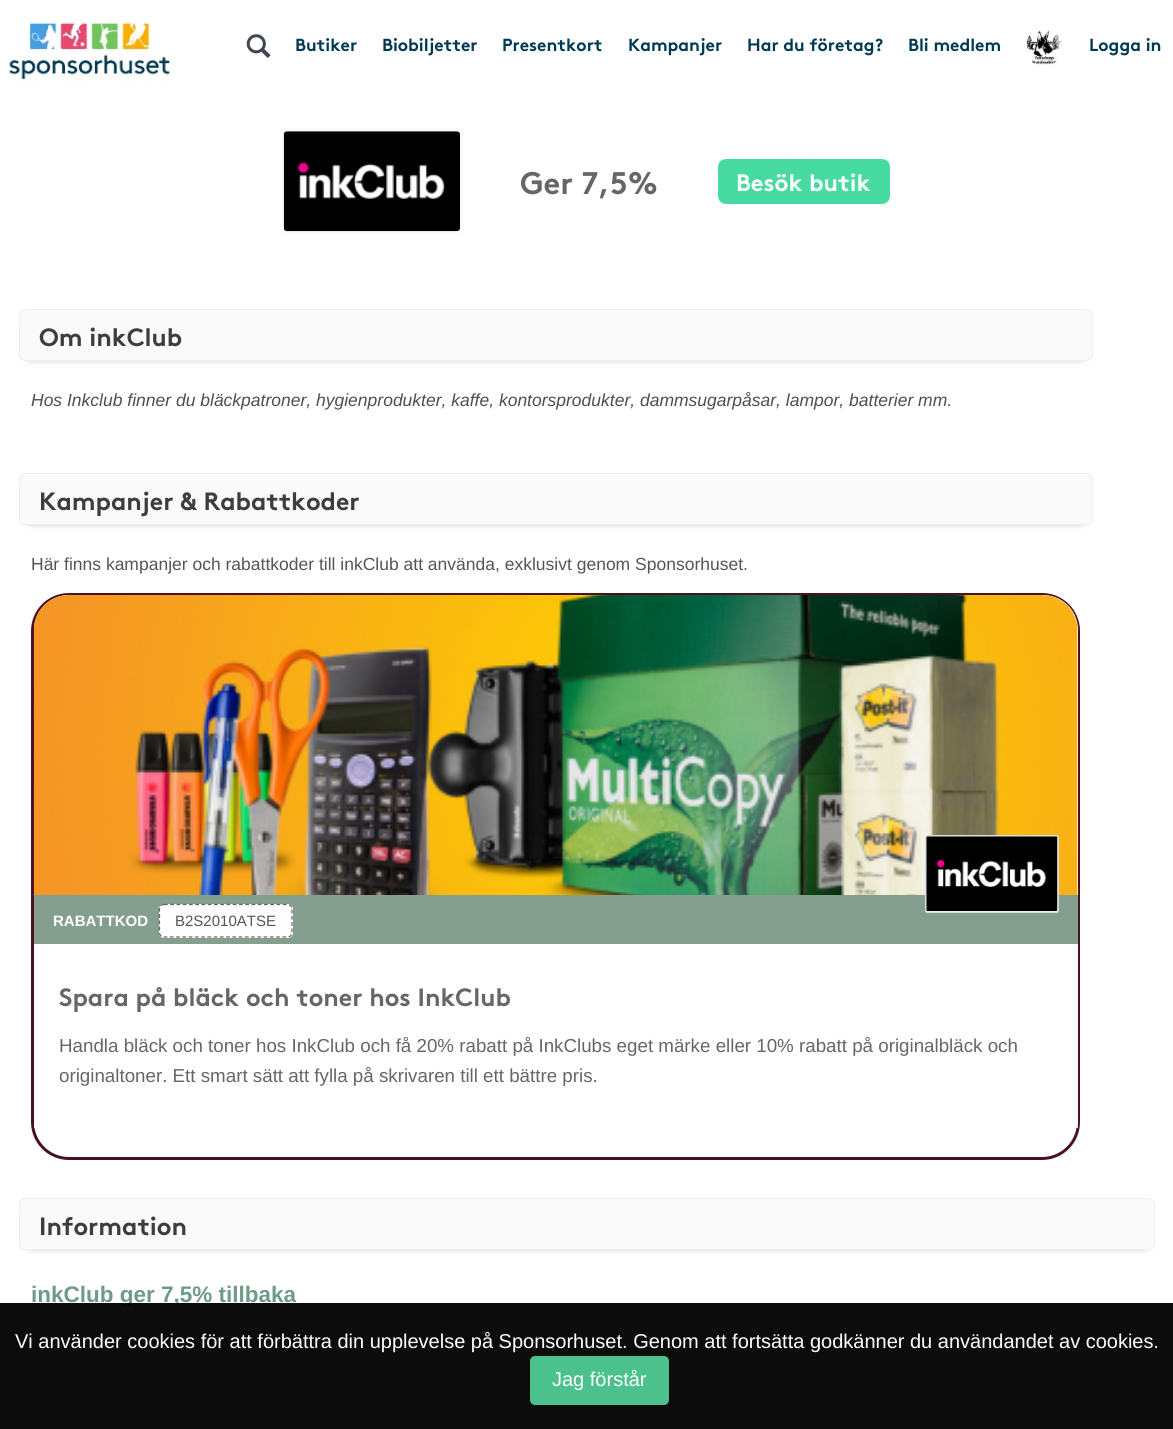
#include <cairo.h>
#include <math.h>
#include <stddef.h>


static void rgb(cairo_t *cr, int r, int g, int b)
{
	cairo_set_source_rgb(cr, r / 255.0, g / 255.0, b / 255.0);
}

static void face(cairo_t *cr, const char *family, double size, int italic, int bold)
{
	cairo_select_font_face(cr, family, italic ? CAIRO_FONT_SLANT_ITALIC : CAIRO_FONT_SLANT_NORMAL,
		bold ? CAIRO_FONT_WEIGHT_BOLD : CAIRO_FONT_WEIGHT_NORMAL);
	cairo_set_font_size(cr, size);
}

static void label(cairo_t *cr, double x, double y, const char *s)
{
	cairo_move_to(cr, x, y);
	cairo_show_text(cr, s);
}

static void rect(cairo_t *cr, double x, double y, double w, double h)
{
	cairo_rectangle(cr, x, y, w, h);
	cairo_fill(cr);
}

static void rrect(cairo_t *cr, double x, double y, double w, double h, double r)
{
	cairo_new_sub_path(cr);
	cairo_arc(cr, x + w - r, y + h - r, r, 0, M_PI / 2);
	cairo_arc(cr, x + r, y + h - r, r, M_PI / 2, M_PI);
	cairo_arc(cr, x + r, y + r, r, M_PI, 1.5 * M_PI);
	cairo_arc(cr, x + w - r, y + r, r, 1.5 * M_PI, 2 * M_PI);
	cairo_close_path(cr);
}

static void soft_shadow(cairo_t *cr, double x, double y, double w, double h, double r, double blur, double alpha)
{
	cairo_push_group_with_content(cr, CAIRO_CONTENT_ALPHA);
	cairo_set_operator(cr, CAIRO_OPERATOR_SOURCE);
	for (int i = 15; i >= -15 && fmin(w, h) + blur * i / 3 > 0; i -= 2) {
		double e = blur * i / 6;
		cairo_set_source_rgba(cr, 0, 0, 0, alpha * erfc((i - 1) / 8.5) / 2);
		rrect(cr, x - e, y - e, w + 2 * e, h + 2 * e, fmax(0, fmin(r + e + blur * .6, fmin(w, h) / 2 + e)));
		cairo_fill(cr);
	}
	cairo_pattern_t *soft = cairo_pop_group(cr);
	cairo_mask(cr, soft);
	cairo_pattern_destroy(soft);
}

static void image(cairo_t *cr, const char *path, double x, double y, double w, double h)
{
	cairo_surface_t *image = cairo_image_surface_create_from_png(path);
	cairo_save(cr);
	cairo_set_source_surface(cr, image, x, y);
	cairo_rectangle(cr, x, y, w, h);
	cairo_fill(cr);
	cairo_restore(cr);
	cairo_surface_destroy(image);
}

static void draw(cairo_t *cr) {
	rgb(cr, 255, 255, 255);
	cairo_paint(cr);
	image(cr, "image0.png", 8, 13, 165, 74);
	image(cr, "image1.png", 246, 34, 25, 24);
	face(cr, "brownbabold", 17.5, 0, 1);
	rgb(cr, 0, 57, 83);
	label(cr, 295, 51, "Butiker");
	label(cr, 382, 51, "Biobiljetter");
	label(cr, 502, 51, "Presentkort");
	label(cr, 628, 51, "Kampanjer");
	label(cr, 747, 51, "Har du företag?");
	label(cr, 908, 51, "Bli medlem");
	image(cr, "image2.png", 1026, 30, 35, 35);
	label(cr, 1089, 51, "Logga in");
	rgb(cr, 238, 238, 238);
	soft_shadow(cr, 284, 131, 176, 100, 4, 3, 1);
	image(cr, "image3.png", 283, 131, 177, 101);
	face(cr, "brownbabold", 31.25, 0, 1);
	rgb(cr, 102, 102, 102);
	label(cr, 520, 194, "Ger 7,5%");
	rgb(cr, 71, 219, 161);
	rrect(cr, 718, 159, 172, 45, 8);
	cairo_fill(cr);
	face(cr, "brownbabold", 23.75, 0, 1);
	rgb(cr, 255, 255, 255);
	label(cr, 736, 191, "Besök butik");
	rgb(cr, 51, 51, 51);
	soft_shadow(cr, 31, 328, 1049, 27, 0, 5, 1);
	rgb(cr, 250, 250, 250);
	rrect(cr, 19.5, 309.5, 1073, 51, 5.5);
	cairo_fill_preserve(cr);
	rgb(cr, 238, 238, 238);
	cairo_set_line_width(cr, 1);
	cairo_stroke(cr);
	face(cr, "brownbabold", 25, 0, 1);
	rgb(cr, 61, 61, 61);
	label(cr, 39, 346, "Om inkClub");
	face(cr, "Liberation Sans", 17.5, 1, 0);
	rgb(cr, 79, 79, 79);
	label(cr, 31, 406, "Hos Inkclub finner du bläckpatroner, hygienprodukter, kaffe, kontorsprodukter, dammsugarpåsar, lampor, batterier mm.");
	rgb(cr, 51, 51, 51);
	soft_shadow(cr, 31, 491, 1049, 28, 0, 5, 1);
	rgb(cr, 250, 250, 250);
	rrect(cr, 19.5, 473.5, 1073, 51, 5.5);
	cairo_fill_preserve(cr);
	rgb(cr, 238, 238, 238);
	cairo_stroke(cr);
	face(cr, "brownbabold", 25, 0, 1);
	rgb(cr, 61, 61, 61);
	label(cr, 39, 510, "Kampanjer & Rabattkoder");
	face(cr, "Liberation Sans", 17.5, 0, 0);
	rgb(cr, 85, 85, 85);
	label(cr, 31, 570, "Här finns kampanjer och rabattkoder till inkClub att använda, exklusivt genom Sponsorhuset.");
	rrect(cr, 32.5, 594.5, 1046, 564, 36.5);
	rgb(cr, 74, 18, 30);
	cairo_set_line_width(cr, 3);
	cairo_stroke(cr);
	rgb(cr, 255, 255, 255);
	cairo_new_path(cr);
	cairo_move_to(cr, 69, 595);
	cairo_line_to(cr, 1043, 595);
	cairo_curve_to(cr, 1062.5, 595, 1078, 610.5, 1078, 630);
	cairo_line_to(cr, 1078, 895);
	cairo_line_to(cr, 34, 895);
	cairo_line_to(cr, 34, 630);
	cairo_curve_to(cr, 34, 610.5, 49.5, 595, 69, 595);
	cairo_close_path(cr);
	cairo_fill(cr);
	image(cr, "image4.png", 33, 595, 1045, 300);
	cairo_save(cr);
	rrect(cr, 34, 595, 1044, 563, 35);
	cairo_clip(cr);
	rect(cr, 34, 944, 1044, 184);
	cairo_restore(cr);
	rgb(cr, 132, 158, 144);
	rect(cr, 34, 895, 1044, 49);
	rgb(cr, 255, 255, 255);
	rrect(cr, 925.5, 835.5, 133, 77, 2);
	cairo_fill_preserve(cr);
	rgb(cr, 221, 221, 221);
	cairo_set_line_width(cr, 1);
	cairo_stroke(cr);
	image(cr, "image5.png", 926, 836, 132, 76);
	face(cr, "Liberation Sans", 15, 0, 1);
	rgb(cr, 255, 255, 255);
	label(cr, 53, 926, "RABATTKOD");
	rgb(cr, 254, 254, 254);
	rrect(cr, 159, 904, 134, 34, 5);
	cairo_fill(cr);
	cairo_new_path(cr);
	cairo_move_to(cr, 164, 904.5);
	cairo_line_to(cr, 287.5, 904.5);
	cairo_curve_to(cr, 290, 904.5, 292, 906.5, 292, 909);
	cairo_line_to(cr, 292, 932.5);
	cairo_curve_to(cr, 292, 935, 290, 937, 287.5, 937);
	cairo_line_to(cr, 164, 937);
	cairo_curve_to(cr, 161.5, 937, 159.5, 935, 159.5, 932.5);
	cairo_line_to(cr, 159.5, 909);
	cairo_curve_to(cr, 159.5, 906.5, 161.5, 904.5, 164, 904.5);
	cairo_close_path(cr);
	rgb(cr, 100, 100, 100);
	cairo_set_line_width(cr, 1.2);
	cairo_set_dash(cr, (double[]){3.75, 2.5}, 2, 0);
	cairo_stroke(cr);
	face(cr, "Liberation Sans", 15, 0, 0);
	rgb(cr, 85, 85, 85);
	label(cr, 175, 926, "B2S2010ATSE");
	face(cr, "brownbabold", 25, 0, 1);
	rgb(cr, 102, 102, 102);
	label(cr, 59, 1006, "Spara på bläck och toner hos InkClub");
	face(cr, "Liberation Sans", 18.75, 0, 0);
	label(cr, 59, 1052, "Handla bläck och toner hos InkClub och få 20% rabatt på InkClubs eget märke eller 10% rabatt på originalbläck och");
	label(cr, 59, 1082, "originaltoner. Ett smart sätt att fylla på skrivaren till ett bättre pris.");
	rgb(cr, 51, 51, 51);
	soft_shadow(cr, 31, 1216, 1112, 28, 0, 5, 1);
	rgb(cr, 250, 250, 250);
	rrect(cr, 19.5, 1198.5, 1135, 51, 5.5);
	cairo_fill_preserve(cr);
	rgb(cr, 238, 238, 238);
	cairo_set_line_width(cr, 1);
	cairo_set_dash(cr, NULL, 0, 0);
	cairo_stroke(cr);
	face(cr, "brownbabold", 25, 0, 1);
	rgb(cr, 61, 61, 61);
	label(cr, 39, 1235, "Information");
	face(cr, "Liberation Sans", 22.5, 0, 1);
	rgb(cr, 109, 155, 133);
	label(cr, 31, 1302, "inkClub ger 7,5% tillbaka");
	rgb(cr, 247, 247, 247);
	rect(cr, 31, 1359, 1112, 45);
	rgb(cr, 235, 235, 235);
	rect(cr, 31, 1358, 500, 1);
	rect(cr, 668, 1358, 476, 1);
	cairo_set_source_rgba(cr, 0, 0, 0, 0.95);
	rect(cr, 0, 1303, 1173, 126);
	face(cr, "Liberation Sans", 20, 0, 0);
	rgb(cr, 255, 255, 255);
	label(cr, 15, 1348, "Vi använder cookies för att förbättra din upplevelse på Sponsorhuset. Genom att fortsätta godkänner du användandet av cookies.");
	rgb(cr, 75, 193, 141);
	rrect(cr, 530, 1356, 139, 49, 5);
	cairo_fill(cr);
	rgb(cr, 255, 255, 255);
	label(cr, 552, 1386, "Jag förstår");
}

int main(void) {
	cairo_surface_t *surface = cairo_image_surface_create(CAIRO_FORMAT_RGB24, 1173, 1429);
	cairo_t *cr = cairo_create(surface);
	cairo_font_options_t *options = cairo_font_options_create();
	cairo_font_options_set_hint_metrics(options, CAIRO_HINT_METRICS_OFF);
	cairo_font_options_set_hint_style(options, CAIRO_HINT_STYLE_NONE);
	cairo_set_font_options(cr, options);
	cairo_set_miter_limit(cr, 4);
	draw(cr);
	cairo_surface_write_to_png(surface, "render.png");
	cairo_font_options_destroy(options);
	cairo_destroy(cr);
	cairo_surface_destroy(surface);
	return 0;
}
